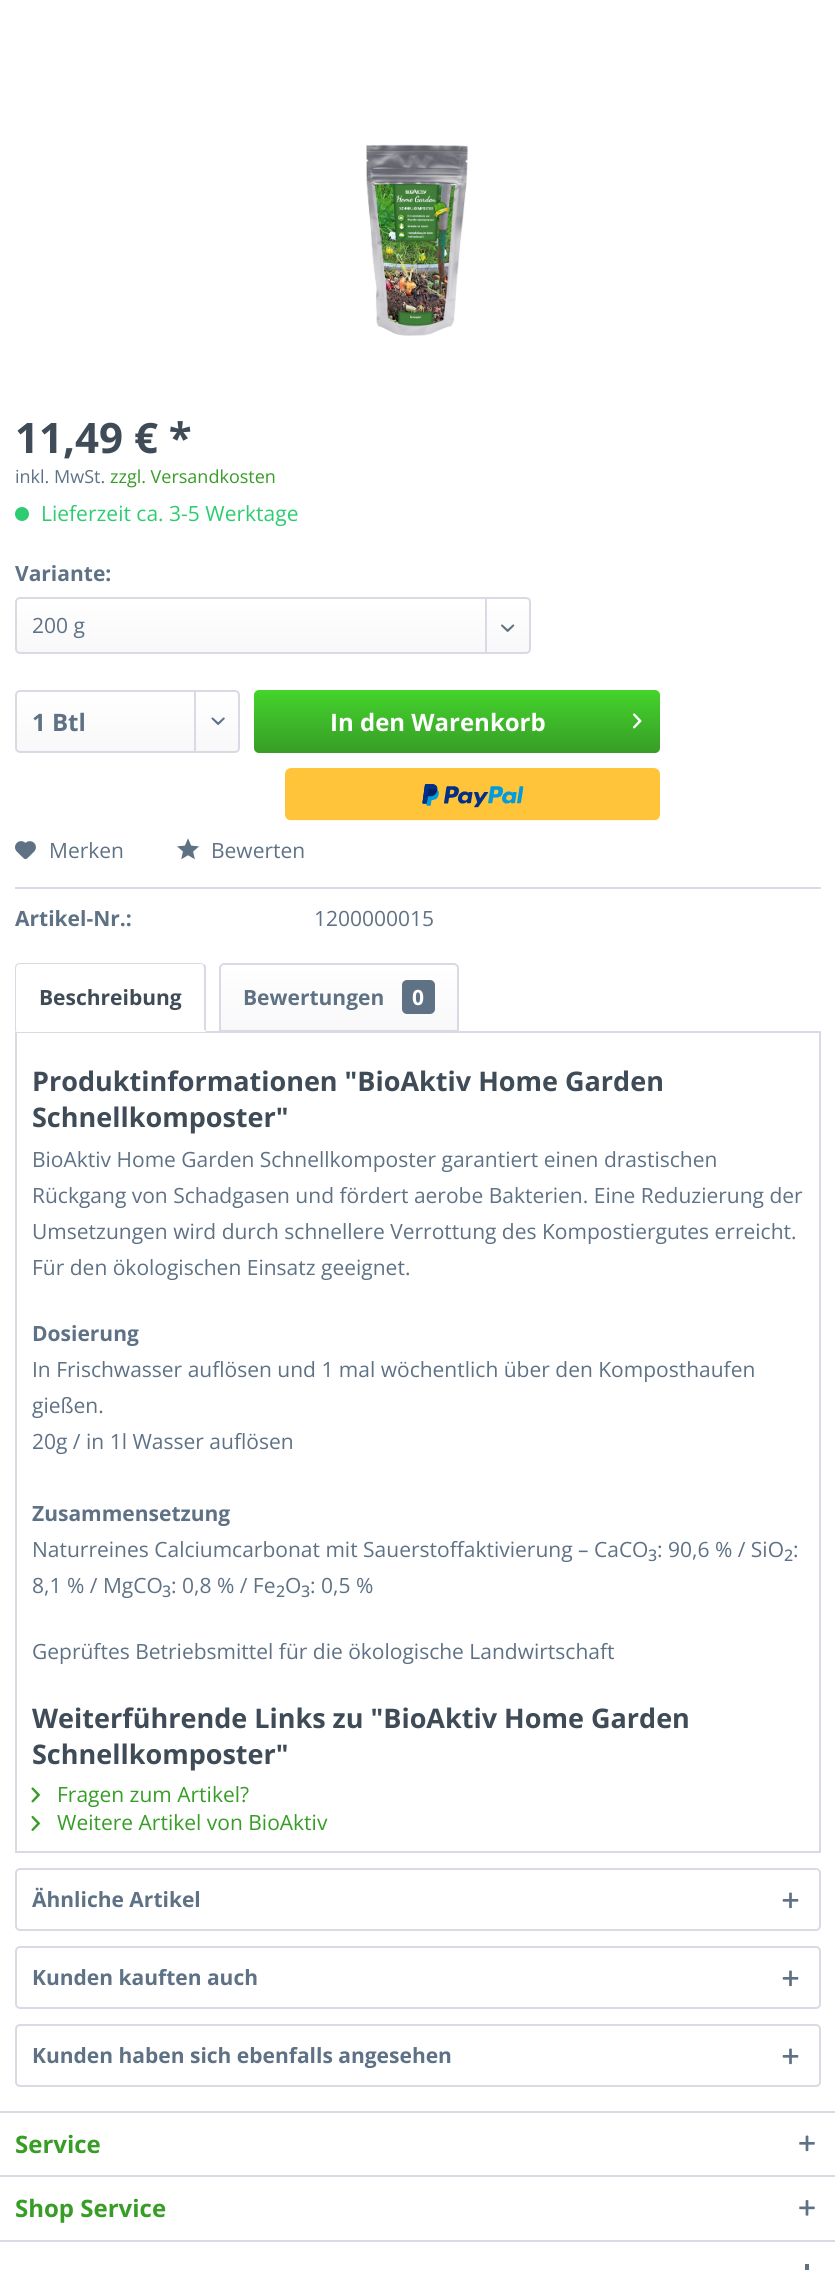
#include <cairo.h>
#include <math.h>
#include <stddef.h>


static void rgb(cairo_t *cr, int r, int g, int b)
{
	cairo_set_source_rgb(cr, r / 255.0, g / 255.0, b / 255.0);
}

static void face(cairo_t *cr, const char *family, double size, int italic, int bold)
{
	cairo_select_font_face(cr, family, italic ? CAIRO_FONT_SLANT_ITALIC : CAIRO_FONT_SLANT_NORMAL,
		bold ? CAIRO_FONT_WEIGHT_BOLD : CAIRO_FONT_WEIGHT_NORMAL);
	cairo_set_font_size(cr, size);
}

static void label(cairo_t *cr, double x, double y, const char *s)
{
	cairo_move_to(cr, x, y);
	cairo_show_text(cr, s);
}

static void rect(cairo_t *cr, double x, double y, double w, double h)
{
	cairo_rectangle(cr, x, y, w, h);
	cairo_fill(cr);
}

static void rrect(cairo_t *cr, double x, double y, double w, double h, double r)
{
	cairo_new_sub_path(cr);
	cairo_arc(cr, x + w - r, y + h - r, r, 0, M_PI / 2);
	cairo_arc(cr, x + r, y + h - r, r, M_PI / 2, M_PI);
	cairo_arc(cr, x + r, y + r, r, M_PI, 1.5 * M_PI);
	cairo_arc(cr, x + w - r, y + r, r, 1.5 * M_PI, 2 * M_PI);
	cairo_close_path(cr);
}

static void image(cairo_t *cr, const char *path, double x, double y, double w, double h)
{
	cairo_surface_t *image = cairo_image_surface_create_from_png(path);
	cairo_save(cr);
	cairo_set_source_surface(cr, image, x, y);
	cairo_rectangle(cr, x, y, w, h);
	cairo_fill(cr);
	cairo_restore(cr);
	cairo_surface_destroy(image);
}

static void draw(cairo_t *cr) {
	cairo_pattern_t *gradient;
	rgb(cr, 255, 255, 255);
	cairo_paint(cr);
	image(cr, "image0.png", 366, 144, 102, 192);
	face(cr, "Open Sans", 42, 0, 1);
	rgb(cr, 63, 76, 88);
	label(cr, 15, 453, "11,49 € *");
	face(cr, "Open Sans", 18, 0, 0);
	rgb(cr, 95, 114, 133);
	label(cr, 15, 483, "inkl. MwSt.");
	rgb(cr, 55, 157, 38);
	label(cr, 110, 483, "zzgl. Versandkosten");
	rgb(cr, 46, 204, 113);
	cairo_new_path(cr);
	cairo_arc(cr, 22, 514, 7, 0, 2 * M_PI);
	cairo_fill(cr);
	face(cr, "Open Sans", 21, 0, 0);
	label(cr, 41, 521, "Lieferzeit ca. 3-5 Werktage");
	face(cr, "Open Sans", 21, 0, 1);
	rgb(cr, 95, 114, 133);
	label(cr, 15, 581, "Variante:");
	gradient = cairo_pattern_create_linear(273, 599, 273, 653);
	cairo_pattern_add_color_stop_rgba(gradient, 0, 1, 1, 1, 1);
	cairo_pattern_add_color_stop_rgba(gradient, 1, 0.973, 0.973, 0.98, 1);
	cairo_set_source(cr, gradient);
	cairo_pattern_destroy(gradient);
	rrect(cr, 17, 599, 513, 54, 3);
	cairo_fill(cr);
	rrect(cr, 16, 598, 514, 55, 4);
	rgb(cr, 218, 218, 229);
	cairo_stroke(cr);
	face(cr, "Open Sans", 21, 0, 0);
	rgb(cr, 95, 114, 133);
	label(cr, 32, 633, "200 g");
	rgb(cr, 218, 218, 229);
	rect(cr, 485, 599, 2, 54);
	image(cr, "image1.png", 501, 624, 14, 8);
	gradient = cairo_pattern_create_linear(128, 692, 128, 752);
	cairo_pattern_add_color_stop_rgba(gradient, 0, 1, 1, 1, 1);
	cairo_pattern_add_color_stop_rgba(gradient, 1, 0.973, 0.973, 0.98, 1);
	cairo_set_source(cr, gradient);
	cairo_pattern_destroy(gradient);
	rrect(cr, 17, 692, 222, 60, 3);
	cairo_fill(cr);
	rrect(cr, 16, 691, 223, 61, 4);
	rgb(cr, 218, 218, 229);
	cairo_stroke(cr);
	face(cr, "Open Sans", 24, 0, 1);
	rgb(cr, 95, 114, 133);
	label(cr, 32, 731, "1 Btl");
	rgb(cr, 218, 218, 229);
	rect(cr, 194, 692, 2, 60);
	image(cr, "image2.png", 211, 717, 14, 8);
	gradient = cairo_pattern_create_linear(457, 690, 457, 753);
	cairo_pattern_add_color_stop_rgba(gradient, 0, 0.267, 0.831, 0.173, 1);
	cairo_pattern_add_color_stop_rgba(gradient, 1, 0.216, 0.616, 0.149, 1);
	cairo_set_source(cr, gradient);
	cairo_pattern_destroy(gradient);
	rrect(cr, 254, 690, 406, 63, 5);
	cairo_fill(cr);
	rgb(cr, 255, 255, 255);
	label(cr, 330, 731, "In den Warenkorb");
	image(cr, "image3.png", 633, 713, 9, 16);
	image(cr, "image4.png", 285, 768, 375, 53);
	rgb(cr, 218, 218, 229);
	rect(cr, 15, 887, 806, 2);
	image(cr, "image5.png", 15, 841, 21, 19);
	face(cr, "Open Sans", 21, 0, 0);
	rgb(cr, 95, 114, 133);
	label(cr, 49, 858, "Merken");
	image(cr, "image6.png", 177, 838, 22, 22);
	label(cr, 211, 858, "Bewerten");
	face(cr, "Open Sans", 21, 0, 1);
	label(cr, 15, 926, "Artikel-Nr.:");
	face(cr, "Open Sans", 21, 0, 0);
	label(cr, 314, 926, "1200000015");
	cairo_rectangle(cr, 16, 1032, 804, 820);
	rgb(cr, 218, 218, 229);
	cairo_stroke(cr);
	rgb(cr, 255, 255, 255);
	cairo_new_path(cr);
	cairo_move_to(cr, 20, 963);
	cairo_line_to(cr, 201, 963);
	cairo_curve_to(cr, 204, 963, 206, 965, 206, 968);
	cairo_line_to(cr, 206, 1032);
	cairo_line_to(cr, 15, 1032);
	cairo_line_to(cr, 15, 968);
	cairo_curve_to(cr, 15, 965, 17, 963, 20, 963);
	cairo_close_path(cr);
	cairo_fill(cr);
	rgb(cr, 218, 218, 229);
	cairo_new_path(cr);
	cairo_move_to(cr, 20, 963);
	cairo_curve_to(cr, 18, 963, 17, 964, 16, 964);
	cairo_line_to(cr, 17, 965);
	cairo_line_to(cr, 20, 964);
	cairo_line_to(cr, 202, 964);
	cairo_line_to(cr, 203, 965);
	cairo_line_to(cr, 204, 964);
	cairo_line_to(cr, 201, 963);
	cairo_close_path(cr);
	cairo_fill(cr);
	cairo_new_path(cr);
	cairo_move_to(cr, 206, 966);
	cairo_line_to(cr, 206, 1032);
	cairo_line_to(cr, 204, 1030);
	cairo_line_to(cr, 204, 968);
	cairo_line_to(cr, 203, 965);
	cairo_line_to(cr, 204, 964);
	cairo_close_path(cr);
	cairo_fill(cr);
	rgb(cr, 255, 255, 255);
	cairo_new_path(cr);
	cairo_move_to(cr, 206, 1032);
	cairo_line_to(cr, 204, 1030);
	cairo_line_to(cr, 17, 1030);
	cairo_line_to(cr, 15, 1032);
	cairo_close_path(cr);
	cairo_fill(cr);
	rgb(cr, 218, 218, 229);
	cairo_new_path(cr);
	cairo_move_to(cr, 15, 1032);
	cairo_line_to(cr, 17, 1030);
	cairo_line_to(cr, 16, 1030);
	cairo_line_to(cr, 16, 968);
	cairo_line_to(cr, 17, 965);
	cairo_line_to(cr, 16, 964);
	cairo_curve_to(cr, 16, 965, 15, 966, 15, 968);
	cairo_close_path(cr);
	cairo_fill(cr);
	face(cr, "Open Sans", 21, 0, 1);
	rgb(cr, 63, 76, 88);
	label(cr, 39, 1005, "Beschreibung");
	gradient = cairo_pattern_create_linear(339, 965, 339, 1031);
	cairo_pattern_add_color_stop_rgba(gradient, 0, 1, 1, 1, 1);
	cairo_pattern_add_color_stop_rgba(gradient, 1, 0.973, 0.973, 0.98, 1);
	cairo_set_source(cr, gradient);
	cairo_pattern_destroy(gradient);
	cairo_new_path(cr);
	cairo_move_to(cr, 224, 965);
	cairo_line_to(cr, 455, 965);
	cairo_curve_to(cr, 456.5, 965, 458, 966.5, 458, 968);
	cairo_line_to(cr, 458, 1031);
	cairo_line_to(cr, 221, 1031);
	cairo_line_to(cr, 221, 968);
	cairo_curve_to(cr, 221, 966.5, 222.5, 965, 224, 965);
	cairo_close_path(cr);
	cairo_fill(cr);
	cairo_new_path(cr);
	cairo_move_to(cr, 224, 964);
	cairo_line_to(cr, 454, 964);
	cairo_curve_to(cr, 456, 964, 458, 966, 458, 968);
	cairo_line_to(cr, 458, 1031);
	cairo_line_to(cr, 220, 1031);
	cairo_line_to(cr, 220, 968);
	cairo_curve_to(cr, 220, 966, 222, 964, 224, 964);
	cairo_close_path(cr);
	rgb(cr, 218, 218, 229);
	cairo_stroke(cr);
	rgb(cr, 95, 114, 133);
	label(cr, 243, 1005, "Bewertungen");
	rrect(cr, 402, 980, 33, 34, 5);
	cairo_fill(cr);
	rgb(cr, 255, 255, 255);
	label(cr, 412, 1005, "0");
	face(cr, "Open Sans", 27, 0, 1);
	rgb(cr, 63, 76, 88);
	label(cr, 32, 1091, "Produktinformationen \"BioAktiv Home Garden");
	label(cr, 32, 1127, "Schnellkomposter\"");
	face(cr, "Open Sans", 21, 0, 0);
	rgb(cr, 95, 114, 133);
	label(cr, 32, 1167, "BioAktiv Home Garden Schnellkomposter garantiert einen drastischen");
	label(cr, 32, 1203, "Rückgang von Schadgasen und fördert aerobe Bakterien. Eine Reduzierung der");
	label(cr, 32, 1239, "Umsetzungen wird durch schnellere Verrottung des Kompostiergutes erreicht.");
	label(cr, 32, 1275, "Für den ökologischen Einsatz geeignet.");
	face(cr, "Open Sans", 21, 0, 1);
	label(cr, 32, 1341, "Dosierung");
	face(cr, "Open Sans", 21, 0, 0);
	label(cr, 32, 1377, "In Frischwasser auflösen und 1 mal wöchentlich über den Komposthaufen");
	label(cr, 32, 1413, "gießen.");
	label(cr, 32, 1449, "20g / in 1l Wasser auflösen");
	face(cr, "Open Sans", 21, 0, 1);
	label(cr, 32, 1521, "Zusammensetzung");
	face(cr, "Open Sans", 21, 0, 0);
	label(cr, 32, 1557, "Naturreines Calciumcarbonat mit Sauerstoffaktivierung – CaCO");
	face(cr, "Open Sans Medium", 16, 0, 0);
	label(cr, 648, 1561, "3");
	face(cr, "Open Sans", 21, 0, 0);
	label(cr, 657, 1557, ": 90,6 % / SiO");
	face(cr, "Open Sans Medium", 16, 0, 0);
	label(cr, 784, 1561, "2");
	face(cr, "Open Sans", 21, 0, 0);
	label(cr, 793, 1557, ":");
	label(cr, 32, 1593, "8,1 % / MgCO");
	face(cr, "Open Sans Medium", 16, 0, 0);
	label(cr, 162, 1597, "3");
	face(cr, "Open Sans", 21, 0, 0);
	label(cr, 171, 1593, ": 0,8 % / Fe");
	face(cr, "Open Sans Medium", 16, 0, 0);
	label(cr, 276, 1597, "2");
	face(cr, "Open Sans", 21, 0, 0);
	label(cr, 285, 1593, "O");
	face(cr, "Open Sans Medium", 16, 0, 0);
	label(cr, 301, 1597, "3");
	face(cr, "Open Sans", 21, 0, 0);
	label(cr, 310, 1593, ": 0,5 %");
	label(cr, 32, 1659, "Geprüftes Betriebsmittel für die ökologische Landwirtschaft");
	face(cr, "Open Sans", 27, 0, 1);
	rgb(cr, 63, 76, 88);
	label(cr, 32, 1728, "Weiterführende Links zu \"BioAktiv Home Garden");
	label(cr, 32, 1764, "Schnellkomposter\"");
	image(cr, "image7.png", 31, 1787, 9, 16);
	face(cr, "Open Sans", 21, 0, 0);
	rgb(cr, 55, 157, 38);
	label(cr, 57, 1802, "Fragen zum Artikel?");
	image(cr, "image8.png", 31, 1816, 9, 15);
	label(cr, 57, 1830, "Weitere Artikel von BioAktiv");
	rrect(cr, 16, 1869, 804, 61, 4);
	rgb(cr, 218, 218, 229);
	cairo_stroke(cr);
	face(cr, "Open Sans", 21, 0, 1);
	rgb(cr, 95, 114, 133);
	label(cr, 32, 1907, "Ähnliche Artikel");
	image(cr, "image9.png", 782, 1892, 17, 17);
	rrect(cr, 16, 1947, 804, 61, 4);
	rgb(cr, 218, 218, 229);
	cairo_stroke(cr);
	rgb(cr, 95, 114, 133);
	label(cr, 32, 1985, "Kunden kauften auch");
	image(cr, "image9.png", 782, 1970, 17, 17);
	rrect(cr, 16, 2025, 804, 61, 4);
	rgb(cr, 218, 218, 229);
	cairo_stroke(cr);
	rgb(cr, 95, 114, 133);
	label(cr, 32, 2063, "Kunden haben sich ebenfalls angesehen");
	image(cr, "image9.png", 782, 2048, 17, 17);
	rgb(cr, 218, 218, 229);
	rect(cr, 0, 2111, 835, 2);
	face(cr, "Open Sans", 24, 0, 1);
	rgb(cr, 55, 157, 38);
	label(cr, 15, 2153, "Service");
	image(cr, "image10.png", 799, 2135, 16, 17);
	rgb(cr, 218, 218, 229);
	rect(cr, 0, 2175, 835, 2);
	rgb(cr, 55, 157, 38);
	label(cr, 15, 2217, "Shop Service");
	image(cr, "image11.png", 799, 2200, 16, 16);
	rgb(cr, 218, 218, 229);
	rect(cr, 0, 2240, 835, 2);
	rgb(cr, 95, 114, 133);
	rect(cr, 805, 2264, 4, 6);
}

int main(void) {
	cairo_surface_t *surface = cairo_image_surface_create(CAIRO_FORMAT_RGB24, 835, 2270);
	cairo_t *cr = cairo_create(surface);
	cairo_font_options_t *options = cairo_font_options_create();
	cairo_font_options_set_hint_metrics(options, CAIRO_HINT_METRICS_OFF);
	cairo_font_options_set_hint_style(options, CAIRO_HINT_STYLE_NONE);
	cairo_set_font_options(cr, options);
	cairo_set_miter_limit(cr, 4);
	draw(cr);
	cairo_surface_write_to_png(surface, "render.png");
	cairo_font_options_destroy(options);
	cairo_destroy(cr);
	cairo_surface_destroy(surface);
	return 0;
}
